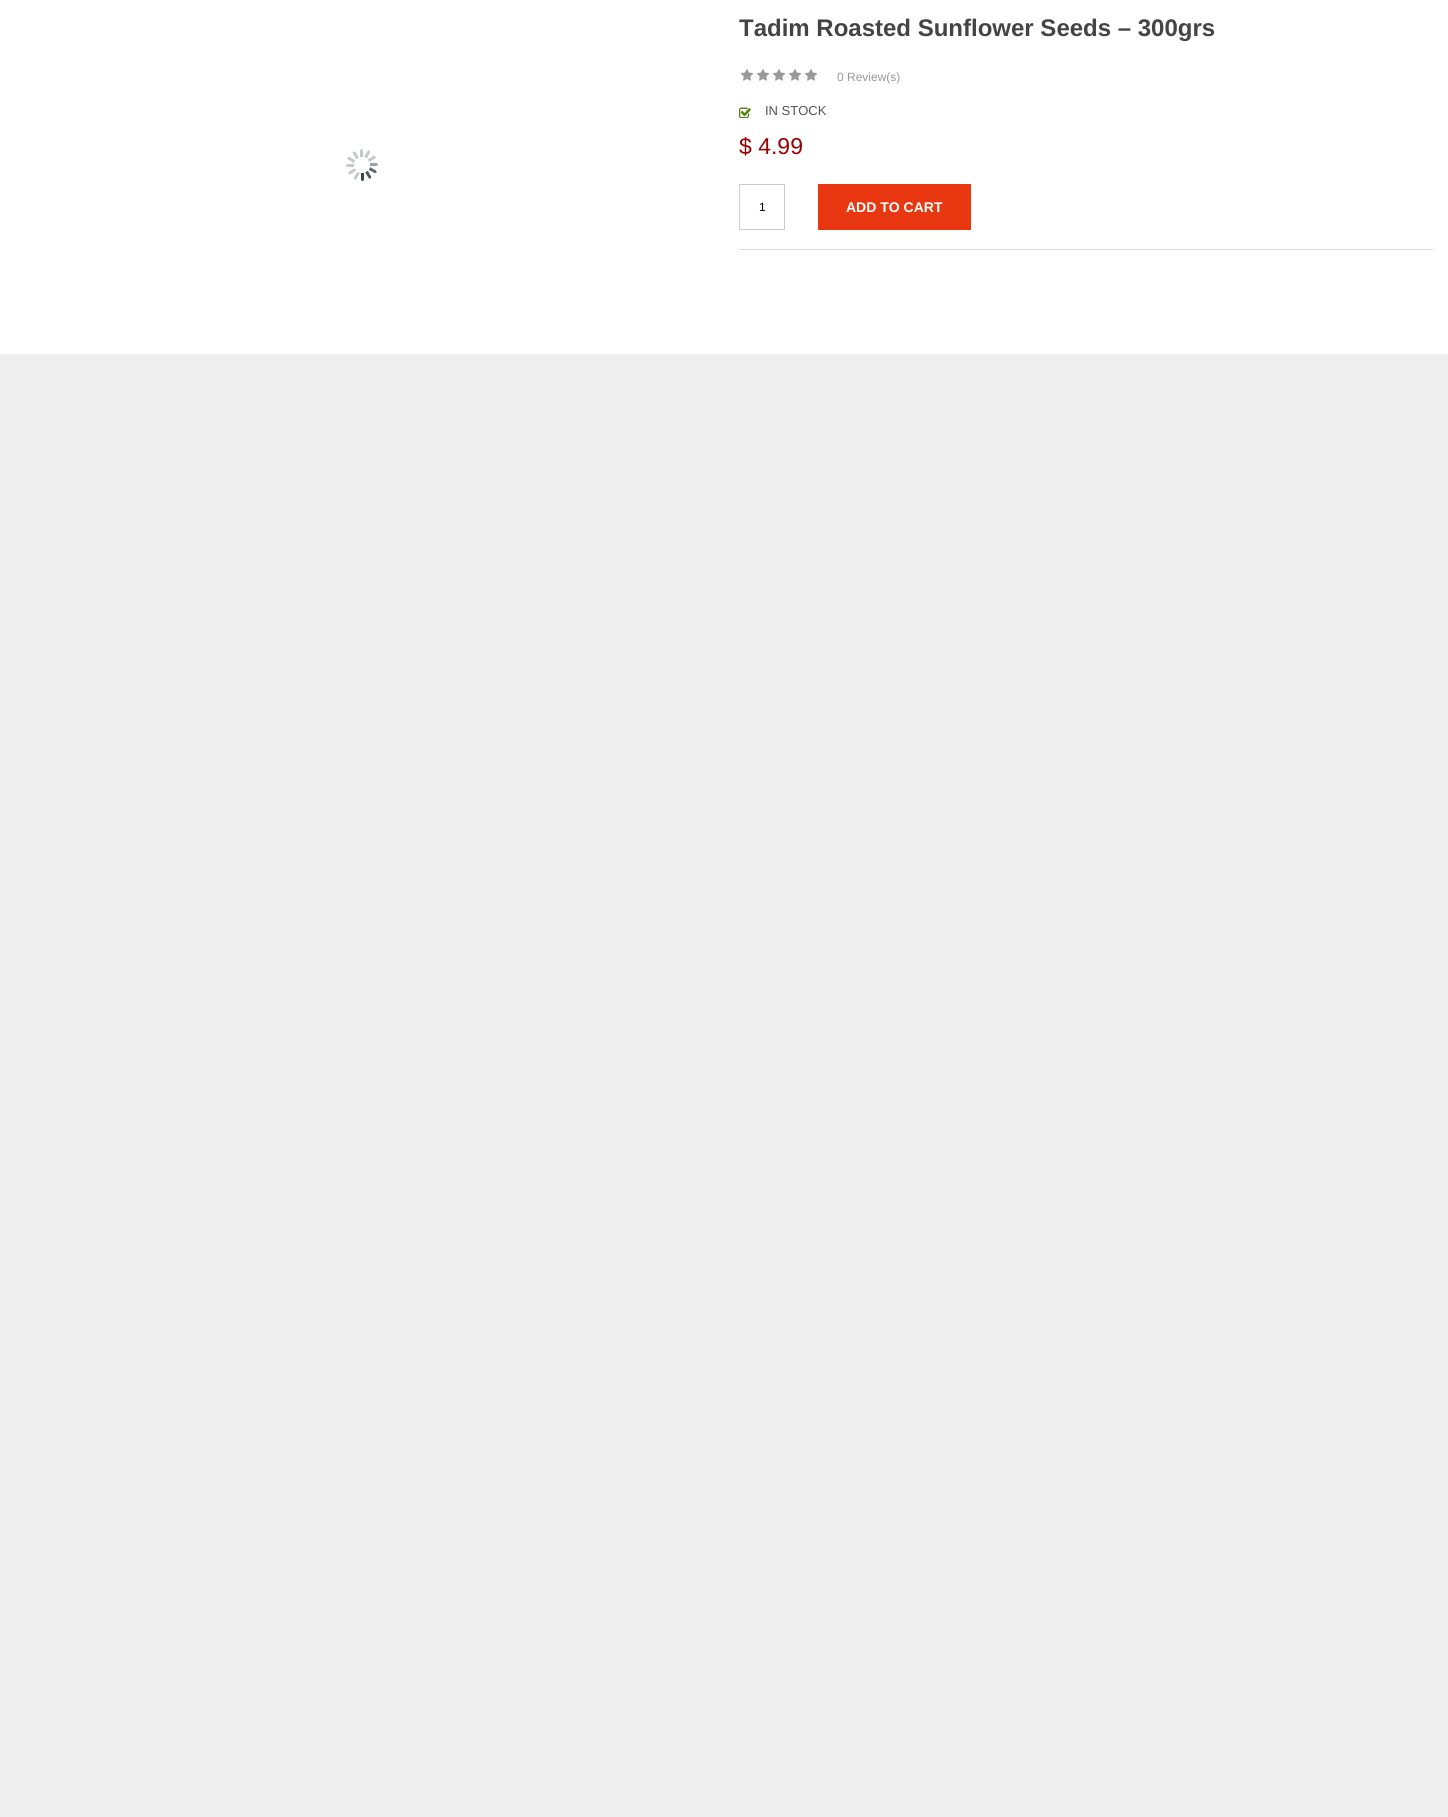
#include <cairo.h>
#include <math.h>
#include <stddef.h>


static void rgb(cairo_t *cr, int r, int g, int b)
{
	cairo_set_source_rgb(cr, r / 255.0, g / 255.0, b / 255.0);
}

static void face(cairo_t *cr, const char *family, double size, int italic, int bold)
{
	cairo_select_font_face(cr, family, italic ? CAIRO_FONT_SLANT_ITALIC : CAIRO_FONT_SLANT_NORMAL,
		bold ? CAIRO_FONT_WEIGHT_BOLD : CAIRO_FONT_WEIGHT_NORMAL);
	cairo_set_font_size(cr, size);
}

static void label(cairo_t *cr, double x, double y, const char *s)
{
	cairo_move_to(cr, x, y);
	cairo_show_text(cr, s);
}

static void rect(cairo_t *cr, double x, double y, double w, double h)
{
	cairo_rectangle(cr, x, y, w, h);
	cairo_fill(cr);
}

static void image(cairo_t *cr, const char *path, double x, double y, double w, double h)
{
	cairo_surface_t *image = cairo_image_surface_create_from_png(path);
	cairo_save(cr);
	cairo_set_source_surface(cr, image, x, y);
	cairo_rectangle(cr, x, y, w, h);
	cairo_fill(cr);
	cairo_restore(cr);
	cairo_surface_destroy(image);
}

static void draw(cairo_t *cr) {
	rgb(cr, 238, 238, 238);
	cairo_paint(cr);
	rgb(cr, 255, 255, 255);
	rect(cr, 0, 0, 1448, 354);
	image(cr, "image0.png", 346, 149, 32, 32);
	face(cr, "Liberation Sans", 24, 0, 1);
	rgb(cr, 68, 68, 68);
	label(cr, 739, 36, "Tadim Roasted Sunflower Seeds – 300grs");
	image(cr, "image1.png", 741, 69, 77, 12);
	face(cr, "Liberation Sans", 12, 0, 0);
	rgb(cr, 153, 153, 153);
	label(cr, 837, 81, "0 Review(s)");
	image(cr, "image2.png", 739, 107, 12, 11);
	face(cr, "Liberation Sans", 13, 0, 0);
	rgb(cr, 84, 84, 84);
	label(cr, 765, 115, "IN STOCK");
	face(cr, "Liberation Sans", 23, 0, 0);
	rgb(cr, 154, 0, 0);
	label(cr, 739, 154, "$ 4.99");
	rgb(cr, 221, 221, 221);
	rect(cr, 739, 249, 694, 1);
	cairo_rectangle(cr, 739.5, 184.5, 45, 45);
	rgb(cr, 204, 204, 204);
	cairo_set_line_width(cr, 1);
	cairo_stroke(cr);
	face(cr, "Liberation Sans", 12, 0, 0);
	rgb(cr, 0, 0, 0);
	label(cr, 759, 211, "1");
	rgb(cr, 233, 55, 18);
	rect(cr, 818, 184, 153, 46);
	face(cr, "Liberation Sans", 14, 0, 1);
	rgb(cr, 255, 255, 255);
	label(cr, 846, 212, "ADD TO CART");
}

int main(void) {
	cairo_surface_t *surface = cairo_image_surface_create(CAIRO_FORMAT_RGB24, 1448, 1817);
	cairo_t *cr = cairo_create(surface);
	cairo_font_options_t *options = cairo_font_options_create();
	cairo_font_options_set_hint_metrics(options, CAIRO_HINT_METRICS_OFF);
	cairo_font_options_set_hint_style(options, CAIRO_HINT_STYLE_NONE);
	cairo_set_font_options(cr, options);
	cairo_set_miter_limit(cr, 4);
	draw(cr);
	cairo_surface_write_to_png(surface, "render.png");
	cairo_font_options_destroy(options);
	cairo_destroy(cr);
	cairo_surface_destroy(surface);
	return 0;
}
